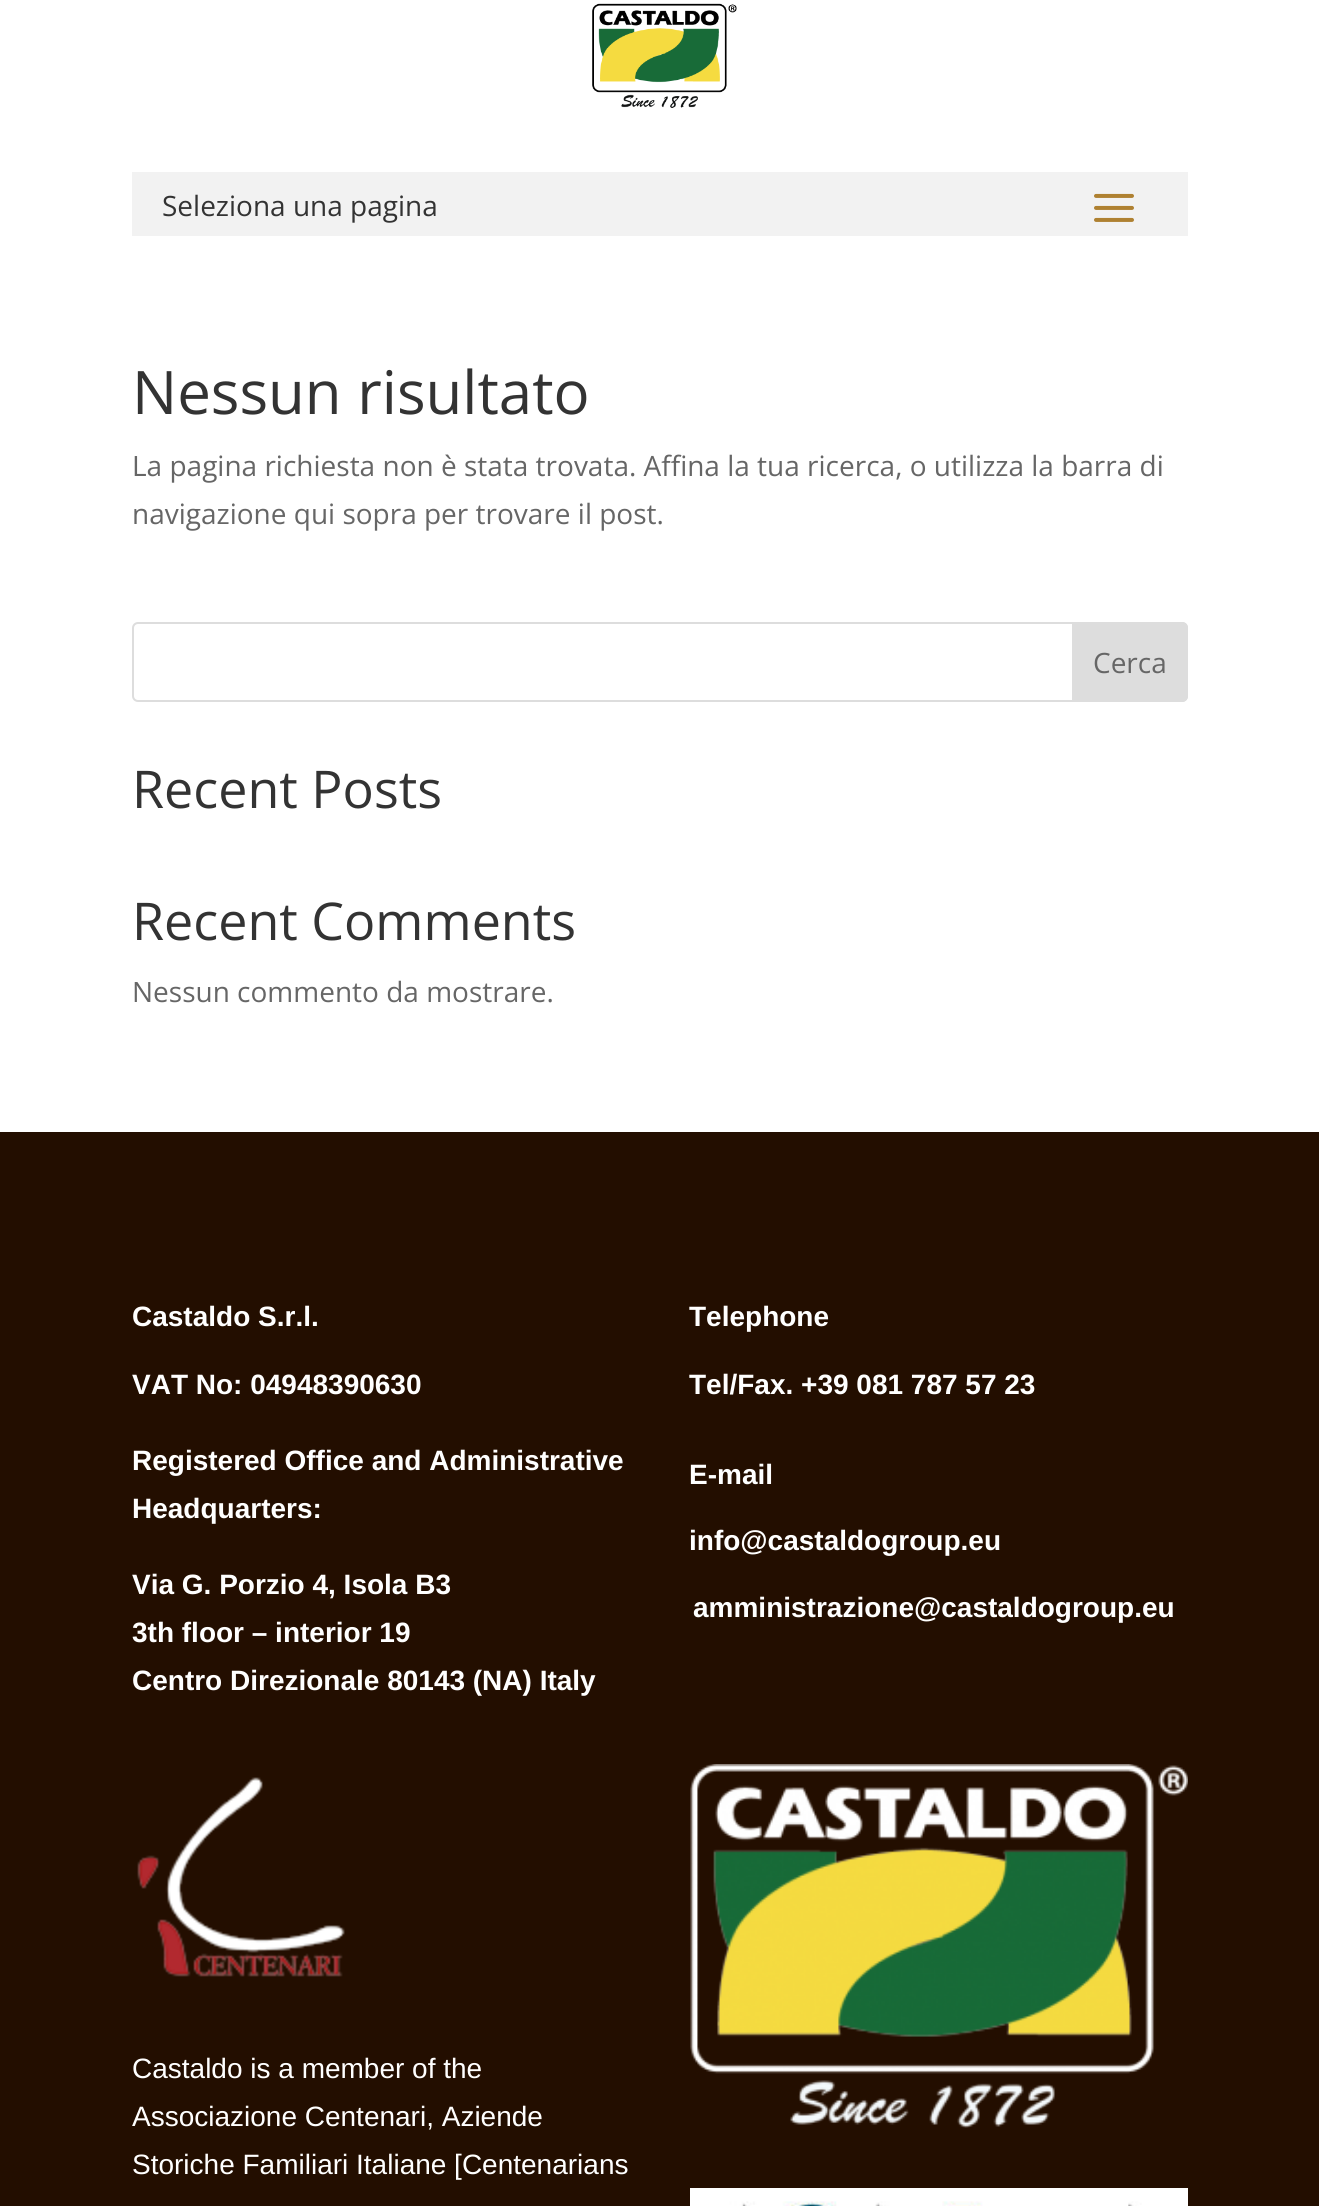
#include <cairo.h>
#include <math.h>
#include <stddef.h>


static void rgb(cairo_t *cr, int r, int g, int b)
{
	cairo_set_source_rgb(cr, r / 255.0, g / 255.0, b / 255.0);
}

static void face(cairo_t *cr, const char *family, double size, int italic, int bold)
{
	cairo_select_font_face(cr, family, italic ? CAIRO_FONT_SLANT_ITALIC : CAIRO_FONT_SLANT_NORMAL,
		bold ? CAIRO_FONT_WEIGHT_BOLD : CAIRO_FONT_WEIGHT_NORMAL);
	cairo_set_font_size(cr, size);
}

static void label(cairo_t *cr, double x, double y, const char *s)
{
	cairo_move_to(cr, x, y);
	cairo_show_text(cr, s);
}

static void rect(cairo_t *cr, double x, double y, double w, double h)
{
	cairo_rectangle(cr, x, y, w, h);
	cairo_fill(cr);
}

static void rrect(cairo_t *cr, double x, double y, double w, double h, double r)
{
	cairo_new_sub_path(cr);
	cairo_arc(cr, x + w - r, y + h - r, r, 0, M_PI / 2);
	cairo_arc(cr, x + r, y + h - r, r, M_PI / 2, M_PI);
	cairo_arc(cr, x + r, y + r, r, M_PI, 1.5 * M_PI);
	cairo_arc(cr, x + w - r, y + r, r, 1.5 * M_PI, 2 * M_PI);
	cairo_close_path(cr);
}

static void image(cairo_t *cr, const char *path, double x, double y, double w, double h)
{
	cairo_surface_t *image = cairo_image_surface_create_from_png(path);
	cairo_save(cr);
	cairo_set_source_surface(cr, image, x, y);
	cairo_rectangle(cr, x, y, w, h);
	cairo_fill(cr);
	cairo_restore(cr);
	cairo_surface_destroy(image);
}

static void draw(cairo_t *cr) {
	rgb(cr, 255, 255, 255);
	cairo_paint(cr);
	image(cr, "image0.png", 592, 3, 145, 105);
	rgb(cr, 242, 242, 242);
	rect(cr, 132, 172, 1056, 64);
	face(cr, "Open Sans", 28, 0, 0);
	rgb(cr, 51, 51, 51);
	label(cr, 162, 216, "Seleziona una pagina");
	image(cr, "image1.png", 1094, 193, 40, 29);
	face(cr, "Open Sans", 60, 0, 0);
	label(cr, 132, 414, "Nessun risultato");
	face(cr, "Open Sans", 28, 0, 0);
	rgb(cr, 102, 102, 102);
	label(cr, 132, 476, "La pagina richiesta non è stata trovata. Affina la tua ricerca, o utilizza la barra di");
	label(cr, 132, 524, "navigazione qui sopra per trovare il post.");
	rrect(cr, 133, 623, 1054, 78, 5);
	rgb(cr, 221, 221, 221);
	cairo_stroke(cr);
	cairo_new_path(cr);
	cairo_move_to(cr, 1073, 623);
	cairo_line_to(cr, 1182, 623);
	cairo_curve_to(cr, 1185, 623, 1187, 625, 1187, 628);
	cairo_line_to(cr, 1187, 696);
	cairo_curve_to(cr, 1187, 699, 1185, 701, 1182, 701);
	cairo_line_to(cr, 1073, 701);
	cairo_close_path(cr);
	cairo_fill_preserve(cr);
	cairo_stroke(cr);
	rgb(cr, 102, 102, 102);
	label(cr, 1093, 673, "Cerca");
	face(cr, "Open Sans", 52, 0, 0);
	rgb(cr, 51, 51, 51);
	label(cr, 132, 808, "Recent Posts");
	label(cr, 132, 940, "Recent Comments");
	face(cr, "Open Sans", 28, 0, 0);
	rgb(cr, 102, 102, 102);
	label(cr, 132, 1002, "Nessun commento da mostrare.");
	rgb(cr, 35, 14, 0);
	rect(cr, 0, 1132, 1319, 1074);
	face(cr, "Liberation Sans", 28, 0, 1);
	rgb(cr, 255, 255, 255);
	label(cr, 132, 1326, "Castaldo S.r.l.");
	label(cr, 132, 1394, "VAT No: 04948390630");
	label(cr, 132, 1470, "Registered Office and Administrative");
	label(cr, 132, 1518, "Headquarters:");
	label(cr, 132, 1594, "Via G. Porzio 4, Isola B3");
	label(cr, 132, 1642, "3th floor – interior 19");
	label(cr, 132, 1690, "Centro Direzionale 80143 (NA) Italy");
	label(cr, 689, 1326, "Telephone");
	label(cr, 689, 1394, "Tel/Fax. +39 081 787 57 23");
	label(cr, 689, 1484, "E-mail");
	label(cr, 689, 1550, "info@castaldogroup.eu");
	label(cr, 693, 1617, "amministrazione@castaldogroup.eu");
	image(cr, "image2.png", 137, 1777, 208, 200);
	face(cr, "Liberation Sans", 28, 0, 0);
	label(cr, 132, 2078, "Castaldo is a member of the");
	label(cr, 132, 2126, "Associazione Centenari, Aziende");
	label(cr, 132, 2174, "Storiche Familiari Italiane [Centenarians");
	image(cr, "image3.png", 690, 1764, 498, 364);
	image(cr, "image4.png", 690, 2188, 498, 18);
}

int main(void) {
	cairo_surface_t *surface = cairo_image_surface_create(CAIRO_FORMAT_RGB24, 1319, 2206);
	cairo_t *cr = cairo_create(surface);
	cairo_font_options_t *options = cairo_font_options_create();
	cairo_font_options_set_hint_metrics(options, CAIRO_HINT_METRICS_OFF);
	cairo_font_options_set_hint_style(options, CAIRO_HINT_STYLE_NONE);
	cairo_set_font_options(cr, options);
	cairo_set_miter_limit(cr, 4);
	draw(cr);
	cairo_surface_write_to_png(surface, "render.png");
	cairo_font_options_destroy(options);
	cairo_destroy(cr);
	cairo_surface_destroy(surface);
	return 0;
}
